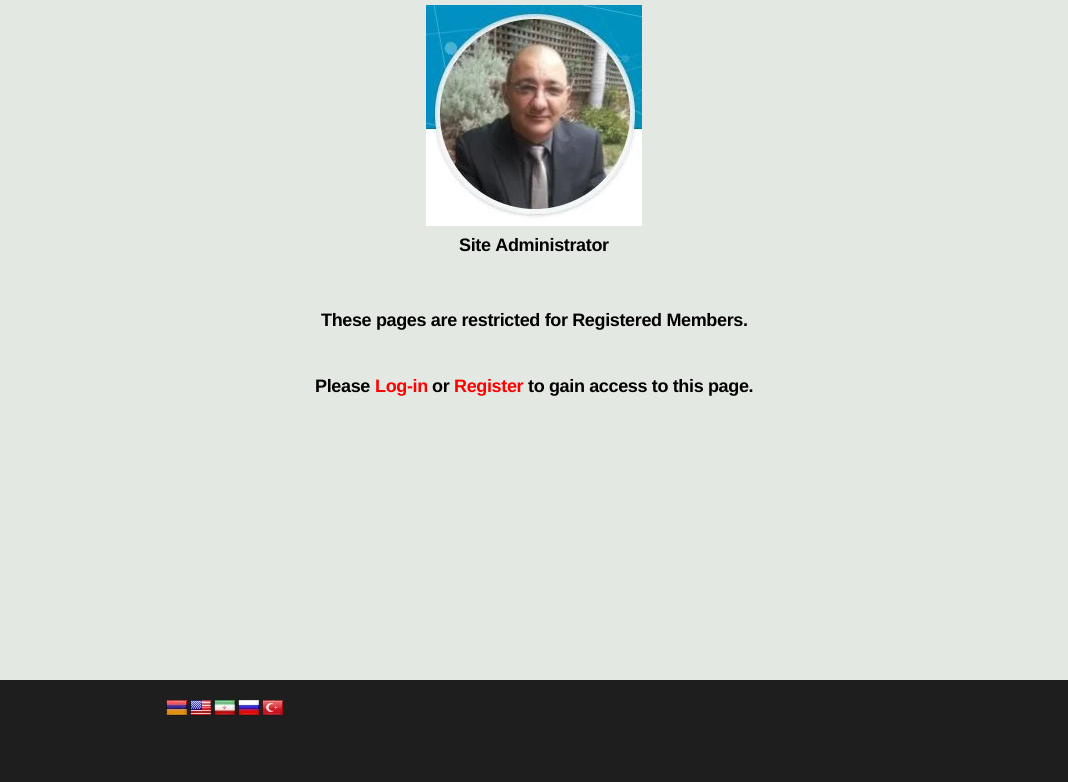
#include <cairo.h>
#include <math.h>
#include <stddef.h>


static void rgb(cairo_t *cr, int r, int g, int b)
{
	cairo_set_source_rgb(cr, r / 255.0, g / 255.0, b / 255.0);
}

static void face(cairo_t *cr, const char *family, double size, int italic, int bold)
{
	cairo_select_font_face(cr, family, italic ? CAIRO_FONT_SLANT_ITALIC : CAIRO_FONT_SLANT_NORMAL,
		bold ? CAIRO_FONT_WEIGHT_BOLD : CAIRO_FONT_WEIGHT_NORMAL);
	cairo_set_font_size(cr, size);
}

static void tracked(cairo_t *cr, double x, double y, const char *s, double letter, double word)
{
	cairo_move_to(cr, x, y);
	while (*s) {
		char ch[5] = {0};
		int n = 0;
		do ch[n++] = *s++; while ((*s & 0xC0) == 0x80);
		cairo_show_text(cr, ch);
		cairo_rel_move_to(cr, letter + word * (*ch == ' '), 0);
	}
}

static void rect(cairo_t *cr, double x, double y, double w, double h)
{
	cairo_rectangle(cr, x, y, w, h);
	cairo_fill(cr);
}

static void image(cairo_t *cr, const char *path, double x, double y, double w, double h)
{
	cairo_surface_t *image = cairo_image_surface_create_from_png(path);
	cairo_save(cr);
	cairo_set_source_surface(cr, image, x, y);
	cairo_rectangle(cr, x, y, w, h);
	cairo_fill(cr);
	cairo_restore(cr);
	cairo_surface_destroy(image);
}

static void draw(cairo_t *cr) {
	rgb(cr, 228, 232, 227);
	cairo_paint(cr);
	image(cr, "image0.png", 426, 5, 216, 221);
	face(cr, "Liberation Sans", 18, 0, 1);
	rgb(cr, 0, 0, 0);
	tracked(cr, 459, 251, "Site Administrator", -0.35, 0);
	tracked(cr, 321, 326, "These pages are restricted for Registered Members.", -0.35, 0);
	tracked(cr, 315, 392, "Please", -0.35, 0);
	rgb(cr, 255, 0, 0);
	tracked(cr, 375, 392, "Log-in", -0.35, 0);
	rgb(cr, 0, 0, 0);
	tracked(cr, 432, 392, "or", -0.35, 0);
	rgb(cr, 255, 0, 0);
	tracked(cr, 454, 392, "Register", -0.35, 0);
	rgb(cr, 0, 0, 0);
	tracked(cr, 528, 392, "to gain access to this page.", -0.35, 0);
	rgb(cr, 30, 30, 30);
	rect(cr, 0, 680, 1068, 102);
	image(cr, "image1.png", 166, 700, 21, 16);
	image(cr, "image2.png", 190, 700, 21, 16);
	image(cr, "image3.png", 214, 700, 21, 16);
	image(cr, "image4.png", 238, 700, 22, 16);
	image(cr, "image5.png", 262, 700, 21, 16);
}

int main(void) {
	cairo_surface_t *surface = cairo_image_surface_create(CAIRO_FORMAT_RGB24, 1068, 782);
	cairo_t *cr = cairo_create(surface);
	cairo_font_options_t *options = cairo_font_options_create();
	cairo_font_options_set_hint_metrics(options, CAIRO_HINT_METRICS_OFF);
	cairo_font_options_set_hint_style(options, CAIRO_HINT_STYLE_NONE);
	cairo_set_font_options(cr, options);
	cairo_set_miter_limit(cr, 4);
	draw(cr);
	cairo_surface_write_to_png(surface, "render.png");
	cairo_font_options_destroy(options);
	cairo_destroy(cr);
	cairo_surface_destroy(surface);
	return 0;
}
